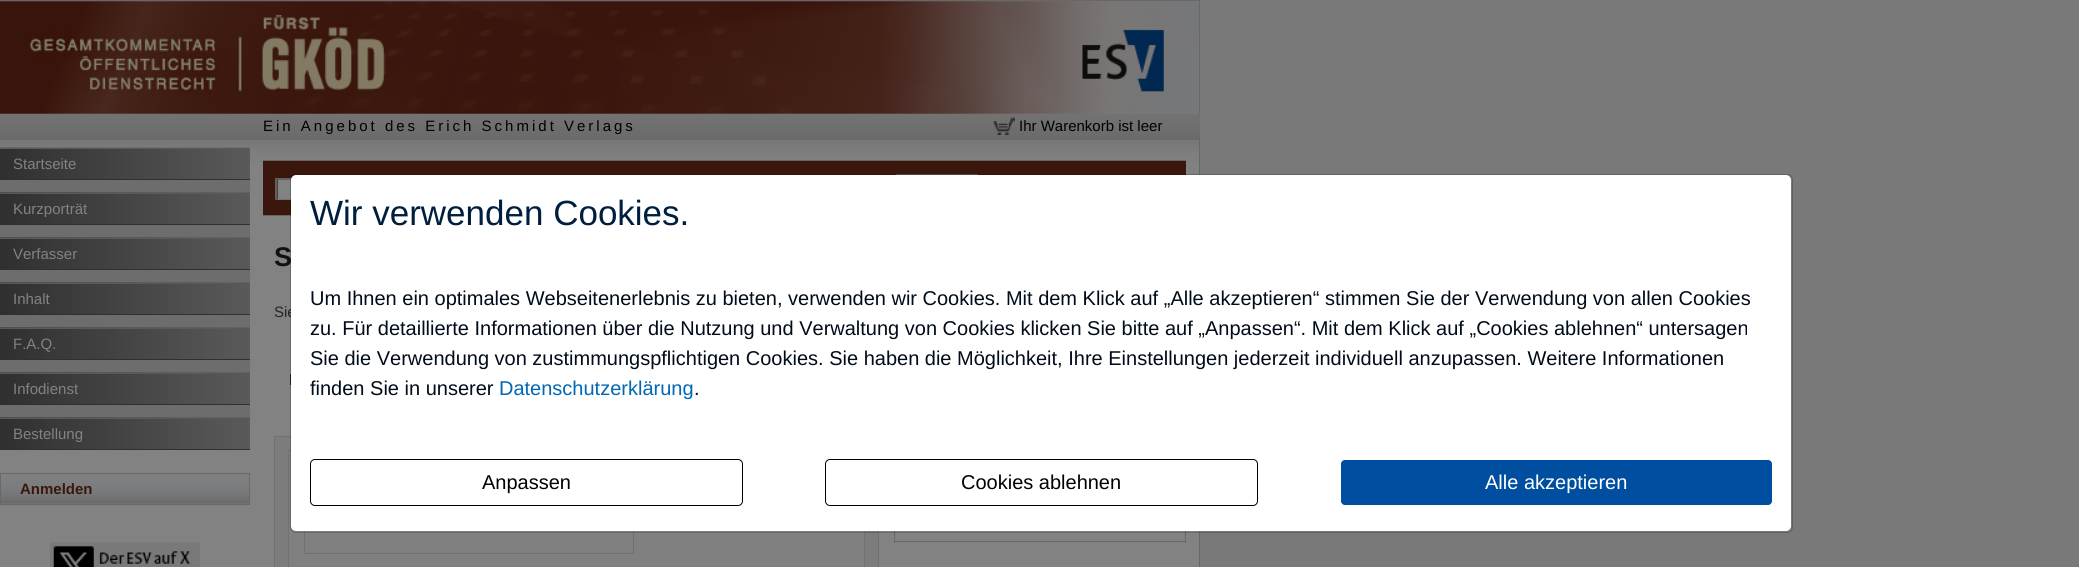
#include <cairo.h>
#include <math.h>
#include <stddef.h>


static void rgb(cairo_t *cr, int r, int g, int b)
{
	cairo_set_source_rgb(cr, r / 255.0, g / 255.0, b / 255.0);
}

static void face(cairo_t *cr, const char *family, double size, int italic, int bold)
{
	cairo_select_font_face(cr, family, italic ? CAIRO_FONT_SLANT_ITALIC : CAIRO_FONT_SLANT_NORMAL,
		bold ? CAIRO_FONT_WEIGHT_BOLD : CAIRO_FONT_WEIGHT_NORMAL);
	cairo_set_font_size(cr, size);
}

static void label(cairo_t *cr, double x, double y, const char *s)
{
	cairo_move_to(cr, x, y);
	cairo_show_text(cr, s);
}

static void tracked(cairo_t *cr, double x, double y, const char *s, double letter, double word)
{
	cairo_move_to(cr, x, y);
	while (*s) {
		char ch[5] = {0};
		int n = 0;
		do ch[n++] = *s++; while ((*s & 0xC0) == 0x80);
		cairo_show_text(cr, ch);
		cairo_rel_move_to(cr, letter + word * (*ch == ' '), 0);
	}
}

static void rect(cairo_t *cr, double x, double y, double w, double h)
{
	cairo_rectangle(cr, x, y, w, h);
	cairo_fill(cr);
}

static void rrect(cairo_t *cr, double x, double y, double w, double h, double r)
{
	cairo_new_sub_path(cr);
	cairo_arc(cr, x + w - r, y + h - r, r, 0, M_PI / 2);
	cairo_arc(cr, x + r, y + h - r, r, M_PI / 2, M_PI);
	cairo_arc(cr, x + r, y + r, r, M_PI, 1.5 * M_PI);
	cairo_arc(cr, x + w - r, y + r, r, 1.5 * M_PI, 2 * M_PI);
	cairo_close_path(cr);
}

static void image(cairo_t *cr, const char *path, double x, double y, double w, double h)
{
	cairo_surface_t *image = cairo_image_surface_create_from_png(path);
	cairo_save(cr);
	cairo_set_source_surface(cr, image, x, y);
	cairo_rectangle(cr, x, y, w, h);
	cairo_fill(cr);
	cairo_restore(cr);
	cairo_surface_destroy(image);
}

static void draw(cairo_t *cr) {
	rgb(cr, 121, 121, 121);
	cairo_paint(cr);
	rgb(cr, 130, 130, 130);
	rect(cr, 0, 1, 1199, 566);
	image(cr, "image0.png", 0, 1, 1199, 48);
	rgb(cr, 104, 104, 104);
	rect(cr, 0, 0, 1200, 1);
	rect(cr, 1199, 0, 1, 114);
	image(cr, "image2.png", 0, 113, 1200, 27);
	image(cr, "image1.png", 0, 1, 1199, 113);
	face(cr, "Liberation Sans", 15, 0, 0);
	rgb(cr, 0, 0, 0);
	tracked(cr, 263, 131, "Ein Angebot des Erich Schmidt Verlags", 3, 0);
	image(cr, "image3.png", 993, 117, 22, 18);
	label(cr, 1019, 131, "Ihr Warenkorb ist leer");
	image(cr, "image4.png", 0, 140, 1199, 23);
	rgb(cr, 104, 104, 104);
	rect(cr, 1199, 140, 1, 427);
	rgb(cr, 109, 109, 109);
	rect(cr, 0, 180, 250, 238);
	image(cr, "image5.png", 0, 147, 250, 32);
	rgb(cr, 90, 90, 90);
	rect(cr, 0, 148, 237, 1);
	rgb(cr, 48, 48, 48);
	rect(cr, 0, 179, 250, 1);
	rgb(cr, 130, 130, 130);
	label(cr, 13, 169, "Startseite");
	image(cr, "image6.png", 0, 192, 250, 32);
	rgb(cr, 90, 90, 90);
	rect(cr, 0, 193, 237, 1);
	rgb(cr, 48, 48, 48);
	rect(cr, 0, 224, 250, 1);
	rgb(cr, 130, 130, 130);
	label(cr, 13, 214, "Kurzporträt");
	image(cr, "image6.png", 0, 237, 250, 32);
	rgb(cr, 90, 90, 90);
	rect(cr, 0, 238, 237, 1);
	rgb(cr, 48, 48, 48);
	rect(cr, 0, 269, 250, 1);
	rgb(cr, 130, 130, 130);
	label(cr, 13, 259, "Verfasser");
	image(cr, "image6.png", 0, 282, 250, 32);
	rgb(cr, 90, 90, 90);
	rect(cr, 0, 283, 237, 1);
	rgb(cr, 48, 48, 48);
	rect(cr, 0, 314, 250, 1);
	rgb(cr, 130, 130, 130);
	label(cr, 13, 304, "Inhalt");
	image(cr, "image6.png", 0, 327, 250, 32);
	rgb(cr, 90, 90, 90);
	rect(cr, 0, 328, 237, 1);
	rgb(cr, 48, 48, 48);
	rect(cr, 0, 359, 250, 1);
	rgb(cr, 130, 130, 130);
	label(cr, 13, 349, "F.A.Q.");
	image(cr, "image6.png", 0, 372, 250, 32);
	rgb(cr, 90, 90, 90);
	rect(cr, 0, 373, 237, 1);
	rgb(cr, 48, 48, 48);
	rect(cr, 0, 404, 250, 1);
	rgb(cr, 130, 130, 130);
	label(cr, 13, 394, "Infodienst");
	image(cr, "image6.png", 0, 417, 250, 32);
	rgb(cr, 90, 90, 90);
	rect(cr, 0, 418, 237, 1);
	rgb(cr, 48, 48, 48);
	rect(cr, 0, 449, 250, 1);
	rgb(cr, 130, 130, 130);
	label(cr, 13, 439, "Bestellung");
	image(cr, "image7.png", 1, 474, 248, 30);
	cairo_rectangle(cr, 0.5, 473.5, 249, 31);
	rgb(cr, 104, 104, 104);
	cairo_set_line_width(cr, 1);
	cairo_stroke(cr);
	face(cr, "Liberation Sans", 15, 0, 1);
	rgb(cr, 59, 22, 13);
	label(cr, 20, 494, "Anmelden");
	image(cr, "image8.png", 50, 542, 150, 25);
	rect(cr, 263, 161, 923, 54);
	rgb(cr, 104, 104, 104);
	rect(cr, 263, 160, 923, 1);
	rect(cr, 263, 215, 28, 1);
	rgb(cr, 96, 96, 96);
	rect(cr, 896, 174, 82, 1);
	rgb(cr, 130, 130, 130);
	rect(cr, 278, 180, 13, 19);
	rgb(cr, 97, 97, 97);
	cairo_new_path(cr);
	cairo_move_to(cr, 275, 178);
	cairo_line_to(cr, 884, 178);
	cairo_line_to(cr, 882, 180);
	cairo_line_to(cr, 278, 180);
	cairo_close_path(cr);
	cairo_fill(cr);
	rgb(cr, 114, 114, 114);
	cairo_new_path(cr);
	cairo_move_to(cr, 884, 200);
	cairo_line_to(cr, 275, 200);
	cairo_line_to(cr, 278, 199);
	cairo_line_to(cr, 882, 199);
	cairo_close_path(cr);
	cairo_fill(cr);
	rgb(cr, 97, 97, 97);
	cairo_new_path(cr);
	cairo_move_to(cr, 275, 200);
	cairo_line_to(cr, 275, 177.5);
	cairo_line_to(cr, 277.5, 180);
	cairo_line_to(cr, 277.5, 199);
	cairo_close_path(cr);
	cairo_fill(cr);
	face(cr, "Liberation Sans", 27, 0, 1);
	rgb(cr, 17, 17, 17);
	label(cr, 274, 266, "S");
	face(cr, "Liberation Sans", 15, 0, 0);
	rgb(cr, 35, 35, 35);
	label(cr, 274, 317, "Sie");
	rgb(cr, 59, 22, 13);
	label(cr, 289, 385, "l");
	rgb(cr, 124, 124, 124);
	cairo_rectangle(cr, 274.5, 436.5, 604, 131);
	cairo_fill_preserve(cr);
	rgb(cr, 113, 113, 113);
	cairo_stroke(cr);
	rgb(cr, 128, 128, 128);
	cairo_rectangle(cr, 288.5, 450.5, 576, 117);
	cairo_fill_preserve(cr);
	rgb(cr, 113, 113, 113);
	cairo_stroke(cr);
	cairo_rectangle(cr, 304.5, 525.5, 329, 28);
	cairo_stroke(cr);
	rgb(cr, 104, 104, 104);
	rect(cr, 1185, 531, 1, 12);
	rect(cr, 894, 541, 292, 1);
	rect(cr, 894, 531, 1, 12);
	rgb(cr, 255, 255, 255);
	rrect(cr, 291, 175, 1500, 356, 5);
	cairo_fill(cr);
	rrect(cr, 290.5, 174.5, 1502, 358, 5.5);
	cairo_set_source_rgba(cr, 0, 0, 0, 0.2);
	cairo_stroke(cr);
	face(cr, "Liberation Sans", 35, 0, 0);
	rgb(cr, 0, 30, 62);
	label(cr, 310, 225, "Wir verwenden Cookies.");
	face(cr, "Liberation Sans", 20, 0, 0);
	rgb(cr, 0, 12, 25);
	label(cr, 310, 305, "Um Ihnen ein optimales Webseitenerlebnis zu bieten, verwenden wir Cookies. Mit dem Klick auf „Alle akzeptieren“ stimmen Sie der Verwendung von allen Cookies");
	label(cr, 310, 335, "zu. Für detaillierte Informationen über die Nutzung und Verwaltung von Cookies klicken Sie bitte auf „Anpassen“. Mit dem Klick auf „Cookies ablehnen“ untersagen");
	label(cr, 310, 365, "Sie die Verwendung von zustimmungspflichtigen Cookies. Sie haben die Möglichkeit, Ihre Einstellungen jederzeit individuell anzupassen. Weitere Informationen");
	label(cr, 310, 395, "finden Sie in unserer");
	rgb(cr, 0, 103, 181);
	label(cr, 499, 395, "Datenschutzerklärung");
	rgb(cr, 0, 12, 25);
	label(cr, 694, 395, ".");
	rrect(cr, 310.5, 459.5, 432, 46, 4.5);
	rgb(cr, 0, 0, 0);
	cairo_stroke(cr);
	label(cr, 482, 489, "Anpassen");
	rrect(cr, 825.5, 459.5, 432, 46, 4.5);
	cairo_stroke(cr);
	label(cr, 961, 489, "Cookies ablehnen");
	rgb(cr, 0, 78, 159);
	rrect(cr, 1340.5, 459.5, 432, 46, 4.5);
	cairo_fill_preserve(cr);
	rgb(cr, 255, 255, 255);
	cairo_stroke(cr);
	label(cr, 1485, 489, "Alle akzeptieren");
}

int main(void) {
	cairo_surface_t *surface = cairo_image_surface_create(CAIRO_FORMAT_RGB24, 2079, 567);
	cairo_t *cr = cairo_create(surface);
	cairo_font_options_t *options = cairo_font_options_create();
	cairo_font_options_set_hint_metrics(options, CAIRO_HINT_METRICS_OFF);
	cairo_font_options_set_hint_style(options, CAIRO_HINT_STYLE_NONE);
	cairo_set_font_options(cr, options);
	cairo_set_miter_limit(cr, 4);
	draw(cr);
	cairo_surface_write_to_png(surface, "render.png");
	cairo_font_options_destroy(options);
	cairo_destroy(cr);
	cairo_surface_destroy(surface);
	return 0;
}
